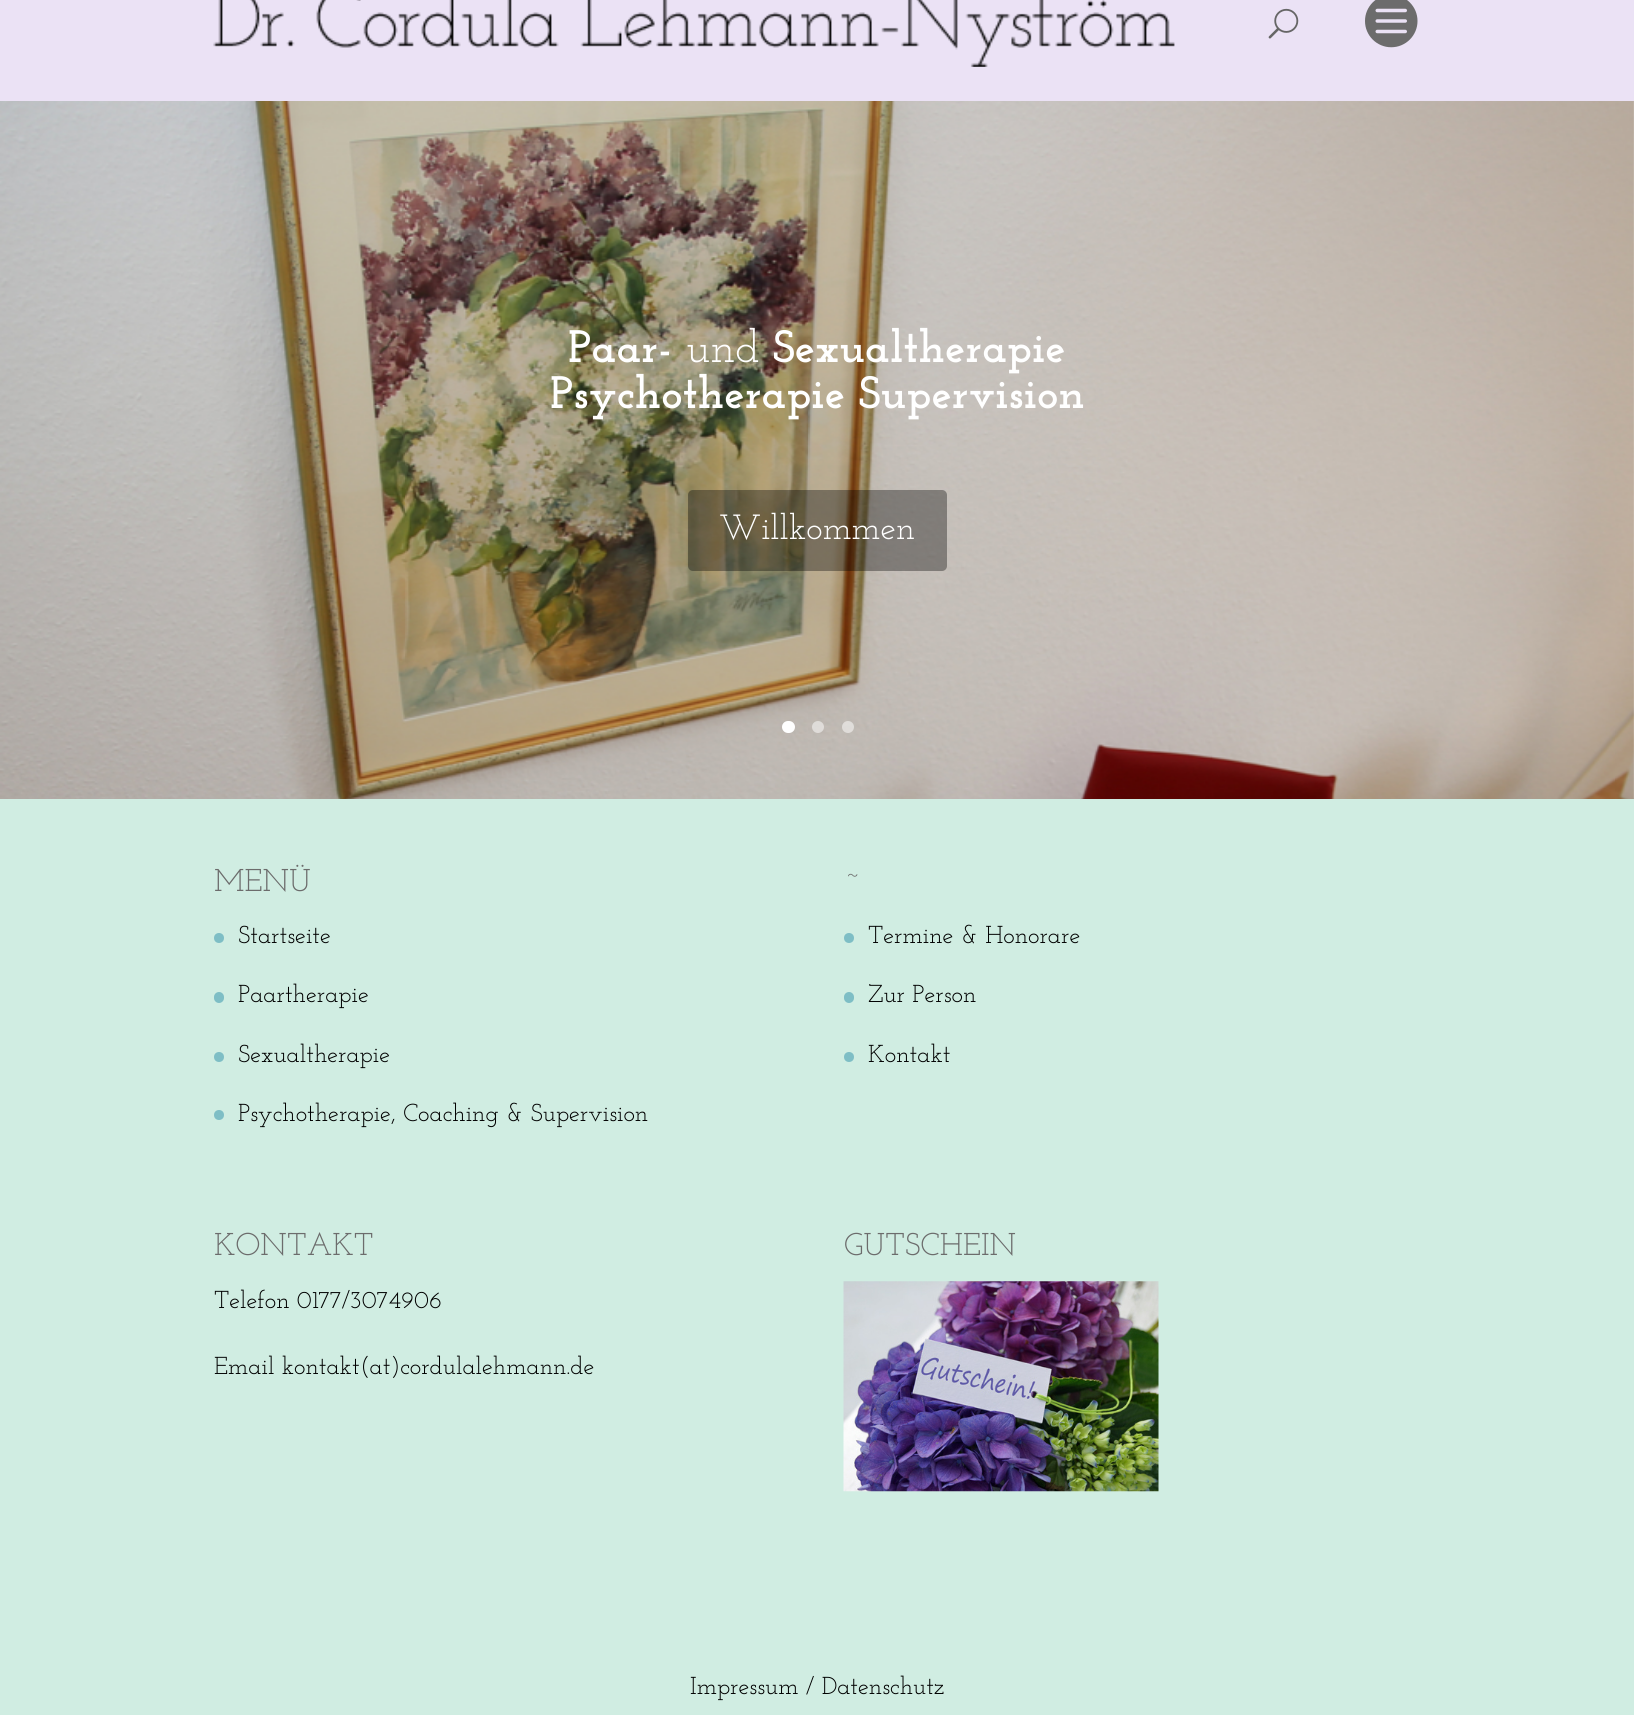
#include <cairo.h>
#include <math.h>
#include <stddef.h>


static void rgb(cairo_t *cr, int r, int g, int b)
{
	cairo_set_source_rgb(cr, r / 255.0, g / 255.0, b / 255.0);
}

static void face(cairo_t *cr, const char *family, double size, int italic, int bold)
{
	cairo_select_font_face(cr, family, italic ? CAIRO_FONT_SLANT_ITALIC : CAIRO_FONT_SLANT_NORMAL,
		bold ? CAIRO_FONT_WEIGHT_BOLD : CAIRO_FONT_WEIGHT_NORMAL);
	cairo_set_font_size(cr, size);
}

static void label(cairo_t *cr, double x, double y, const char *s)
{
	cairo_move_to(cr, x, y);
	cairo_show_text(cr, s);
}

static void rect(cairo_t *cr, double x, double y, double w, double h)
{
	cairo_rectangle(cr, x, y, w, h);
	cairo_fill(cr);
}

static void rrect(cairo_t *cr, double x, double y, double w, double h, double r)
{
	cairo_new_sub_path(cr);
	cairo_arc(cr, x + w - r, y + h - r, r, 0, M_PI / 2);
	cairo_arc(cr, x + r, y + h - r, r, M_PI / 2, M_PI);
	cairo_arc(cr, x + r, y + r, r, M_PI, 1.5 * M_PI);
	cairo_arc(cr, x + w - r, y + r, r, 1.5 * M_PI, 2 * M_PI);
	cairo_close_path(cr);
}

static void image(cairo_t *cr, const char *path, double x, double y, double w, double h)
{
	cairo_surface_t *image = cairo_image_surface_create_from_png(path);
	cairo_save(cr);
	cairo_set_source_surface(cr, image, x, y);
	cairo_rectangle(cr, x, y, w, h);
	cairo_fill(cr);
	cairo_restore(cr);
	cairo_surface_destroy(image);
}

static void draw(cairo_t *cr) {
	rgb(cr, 255, 255, 255);
	cairo_paint(cr);
	rgb(cr, 235, 226, 245);
	rect(cr, 0, 0, 1634, 102);
	image(cr, "image0.png", 213, 0, 962, 67);
	image(cr, "image1.png", 1268, 8, 31, 31);
	image(cr, "image2.png", 1365, 0, 53, 48);
	rgb(cr, 208, 237, 226);
	rect(cr, 0, 798, 1634, 917);
	image(cr, "image3.png", 0, 101, 1634, 698);
	face(cr, "Josefin Slab", 45.5, 0, 1);
	rgb(cr, 255, 255, 255);
	label(cr, 568, 362, "Paar-");
	face(cr, "Josefin Slab", 45.5, 0, 0);
	label(cr, 686, 362, "und");
	face(cr, "Josefin Slab", 45.5, 0, 1);
	label(cr, 773, 362, "Sexualtherapie");
	label(cr, 550, 408, "Psychotherapie Supervision");
	cairo_set_source_rgba(cr, 0, 0, 0, 0.35);
	rrect(cr, 688, 490, 259, 81, 5);
	cairo_fill(cr);
	face(cr, "Josefin Slab", 35, 0, 0);
	rgb(cr, 255, 255, 255);
	label(cr, 719, 539, "Willkommen");
	rrect(cr, 782, 721, 13, 12, 6);
	cairo_fill(cr);
	cairo_set_source_rgba(cr, 1, 1, 1, 0.5);
	cairo_arc(cr, 818, 727, 6, 0, 2 * M_PI);
	cairo_fill(cr);
	cairo_arc(cr, 848, 727, 6, 0, 2 * M_PI);
	cairo_fill(cr);
	face(cr, "Josefin Slab", 31.5, 0, 0);
	rgb(cr, 108, 108, 108);
	label(cr, 214, 891, "MENÜ");
	rgb(cr, 126, 190, 197);
	cairo_new_path(cr);
	cairo_arc(cr, 219, 938, 5, 0, 2 * M_PI);
	cairo_fill(cr);
	face(cr, "Josefin Slab", 24.5, 0, 0);
	rgb(cr, 0, 0, 0);
	label(cr, 238, 943, "Startseite");
	rgb(cr, 126, 190, 197);
	rrect(cr, 214, 992, 10, 11, 5);
	cairo_fill(cr);
	rgb(cr, 0, 0, 0);
	label(cr, 238, 1002, "Paartherapie");
	rgb(cr, 126, 190, 197);
	cairo_new_path(cr);
	cairo_arc(cr, 219, 1057, 5, 0, 2 * M_PI);
	cairo_fill(cr);
	rgb(cr, 0, 0, 0);
	label(cr, 238, 1062, "Sexualtherapie");
	rgb(cr, 126, 190, 197);
	cairo_new_path(cr);
	cairo_arc(cr, 219, 1115, 5, 0, 2 * M_PI);
	cairo_fill(cr);
	rgb(cr, 0, 0, 0);
	label(cr, 238, 1121, "Psychotherapie, Coaching & Supervision");
	face(cr, "Josefin Slab", 31.5, 0, 0);
	rgb(cr, 108, 108, 108);
	label(cr, 844, 891, "~");
	rgb(cr, 126, 190, 197);
	cairo_new_path(cr);
	cairo_arc(cr, 849, 938, 5, 0, 2 * M_PI);
	cairo_fill(cr);
	face(cr, "Josefin Slab", 24.5, 0, 0);
	rgb(cr, 0, 0, 0);
	label(cr, 868, 943, "Termine & Honorare");
	rgb(cr, 126, 190, 197);
	rrect(cr, 844, 992, 10, 11, 5);
	cairo_fill(cr);
	rgb(cr, 0, 0, 0);
	label(cr, 868, 1002, "Zur Person");
	rgb(cr, 126, 190, 197);
	cairo_new_path(cr);
	cairo_arc(cr, 849, 1057, 5, 0, 2 * M_PI);
	cairo_fill(cr);
	rgb(cr, 0, 0, 0);
	label(cr, 868, 1062, "Kontakt");
	face(cr, "Josefin Slab", 31.5, 0, 0);
	rgb(cr, 108, 108, 108);
	label(cr, 214, 1255, "KONTAKT");
	face(cr, "Josefin Slab", 24.5, 0, 0);
	rgb(cr, 0, 0, 0);
	label(cr, 214, 1308, "Telefon 0177/3074906");
	label(cr, 214, 1374, "Email kontakt(at)cordulalehmann.de");
	face(cr, "Josefin Slab", 31.5, 0, 0);
	rgb(cr, 108, 108, 108);
	label(cr, 844, 1255, "GUTSCHEIN");
	image(cr, "image4.png", 843, 1281, 316, 211);
	face(cr, "Josefin Slab", 24.5, 0, 0);
	rgb(cr, 0, 0, 0);
	label(cr, 690, 1694, "Impressum / Datenschutz");
}

int main(void) {
	cairo_surface_t *surface = cairo_image_surface_create(CAIRO_FORMAT_RGB24, 1634, 1715);
	cairo_t *cr = cairo_create(surface);
	cairo_font_options_t *options = cairo_font_options_create();
	cairo_font_options_set_hint_metrics(options, CAIRO_HINT_METRICS_OFF);
	cairo_font_options_set_hint_style(options, CAIRO_HINT_STYLE_NONE);
	cairo_set_font_options(cr, options);
	cairo_set_miter_limit(cr, 4);
	draw(cr);
	cairo_surface_write_to_png(surface, "render.png");
	cairo_font_options_destroy(options);
	cairo_destroy(cr);
	cairo_surface_destroy(surface);
	return 0;
}
